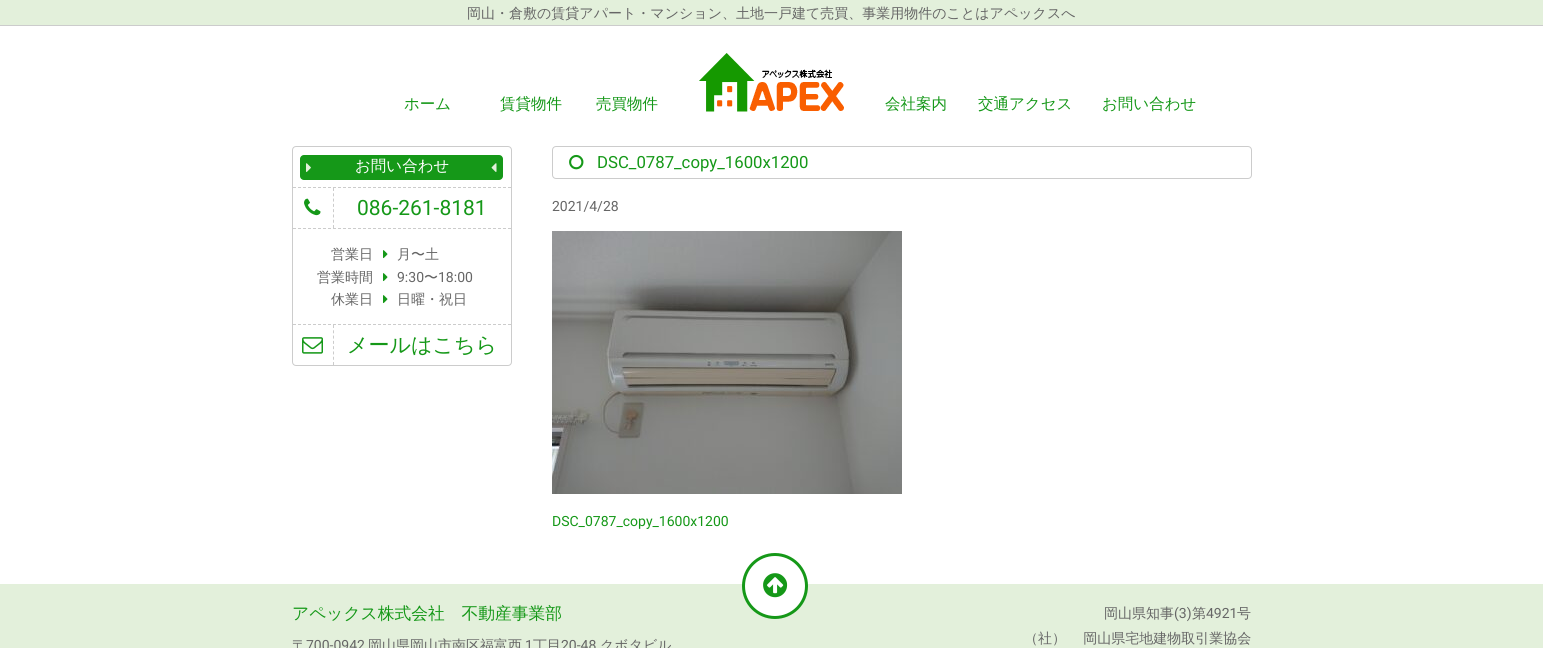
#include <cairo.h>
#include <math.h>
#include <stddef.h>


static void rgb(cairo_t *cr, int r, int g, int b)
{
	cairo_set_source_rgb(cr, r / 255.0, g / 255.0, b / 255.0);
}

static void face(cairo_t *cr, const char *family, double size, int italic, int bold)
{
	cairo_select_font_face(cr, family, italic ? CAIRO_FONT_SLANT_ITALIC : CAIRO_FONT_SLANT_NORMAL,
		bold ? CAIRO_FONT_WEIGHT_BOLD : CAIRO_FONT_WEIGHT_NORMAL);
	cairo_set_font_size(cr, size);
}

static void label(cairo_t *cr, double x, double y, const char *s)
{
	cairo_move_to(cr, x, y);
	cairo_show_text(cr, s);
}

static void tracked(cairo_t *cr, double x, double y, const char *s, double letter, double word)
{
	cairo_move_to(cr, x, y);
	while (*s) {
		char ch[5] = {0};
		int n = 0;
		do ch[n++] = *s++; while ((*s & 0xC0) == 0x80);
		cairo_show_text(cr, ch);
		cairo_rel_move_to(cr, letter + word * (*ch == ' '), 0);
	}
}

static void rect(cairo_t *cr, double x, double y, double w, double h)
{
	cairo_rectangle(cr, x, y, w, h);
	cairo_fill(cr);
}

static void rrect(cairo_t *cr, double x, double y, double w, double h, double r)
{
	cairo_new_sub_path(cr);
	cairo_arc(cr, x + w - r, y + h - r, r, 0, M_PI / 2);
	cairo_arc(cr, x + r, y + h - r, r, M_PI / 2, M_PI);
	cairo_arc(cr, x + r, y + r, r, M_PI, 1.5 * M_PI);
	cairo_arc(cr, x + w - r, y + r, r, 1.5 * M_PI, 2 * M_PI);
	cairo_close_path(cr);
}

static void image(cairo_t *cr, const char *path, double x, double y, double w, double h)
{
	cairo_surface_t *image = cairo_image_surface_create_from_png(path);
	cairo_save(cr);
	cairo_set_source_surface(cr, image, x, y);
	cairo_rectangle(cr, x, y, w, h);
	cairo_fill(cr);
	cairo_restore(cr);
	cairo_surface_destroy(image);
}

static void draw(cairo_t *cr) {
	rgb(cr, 255, 255, 255);
	cairo_paint(cr);
	rgb(cr, 227, 240, 219);
	rect(cr, 0, 0, 1543, 25);
	rgb(cr, 204, 204, 204);
	rect(cr, 0, 25, 1543, 1);
	face(cr, "WenQuanYi Zen Hei Medium", 14, 0, 0);
	rgb(cr, 102, 102, 102);
	label(cr, 467, 18, "岡山・倉敷の賃貸アパート・マンション、土地一戸建て売買、事業用物件のことはアペックスへ");
	image(cr, "image0.png", 699, 53, 145, 59);
	face(cr, "WenQuanYi Zen Hei Medium", 15.5, 0, 0);
	rgb(cr, 21, 152, 24);
	label(cr, 404, 109, "ホーム");
	label(cr, 500, 109, "賃貸物件");
	label(cr, 596, 109, "売買物件");
	label(cr, 885, 109, "会社案内");
	label(cr, 978, 109, "交通アクセス");
	label(cr, 1102, 109, "お問い合わせ");
	rrect(cr, 292.5, 146.5, 219, 219, 3.5);
	rgb(cr, 204, 204, 204);
	cairo_set_line_width(cr, 1);
	cairo_stroke(cr);
	rgb(cr, 21, 152, 24);
	rrect(cr, 300, 155, 203, 25, 4);
	cairo_fill(cr);
	image(cr, "image1.png", 306, 163, 5, 9);
	rgb(cr, 255, 255, 255);
	label(cr, 355, 171, "お問い合わせ");
	image(cr, "image2.png", 491, 163, 6, 9);
	cairo_new_path(cr);
	cairo_move_to(cr, 293, 187.5);
	cairo_line_to(cr, 511, 187.5);
	rgb(cr, 204, 204, 204);
	cairo_set_dash(cr, (double[]){3, 2}, 2, 0);
	cairo_stroke(cr);
	cairo_new_path(cr);
	cairo_move_to(cr, 333.5, 188);
	cairo_line_to(cr, 333.5, 228);
	cairo_set_dash(cr, (double[]){3, 2.29}, 2, 0);
	cairo_stroke(cr);
	image(cr, "image3.png", 304, 198, 17, 18);
	face(cr, "Roboto", 21, 0, 0);
	rgb(cr, 21, 152, 24);
	label(cr, 357, 215, "086-261-8181");
	cairo_new_path(cr);
	cairo_move_to(cr, 293, 228.5);
	cairo_line_to(cr, 511, 228.5);
	rgb(cr, 204, 204, 204);
	cairo_set_dash(cr, (double[]){3, 2}, 2, 0);
	cairo_stroke(cr);
	face(cr, "WenQuanYi Zen Hei Medium", 14, 0, 0);
	rgb(cr, 102, 102, 102);
	label(cr, 331, 259, "営業日");
	image(cr, "image4.png", 383, 250, 5, 9);
	label(cr, 397, 259, "月〜土");
	label(cr, 317, 282, "営業時間");
	image(cr, "image4.png", 383, 273, 5, 9);
	face(cr, "Roboto", 14, 0, 0);
	label(cr, 397, 282, "9:30");
	face(cr, "WenQuanYi Zen Hei Medium", 14, 0, 0);
	label(cr, 424, 282, "〜");
	face(cr, "Roboto", 14, 0, 0);
	label(cr, 438, 282, "18:00");
	face(cr, "WenQuanYi Zen Hei Medium", 14, 0, 0);
	label(cr, 331, 304, "休業日");
	image(cr, "image4.png", 383, 295, 5, 9);
	label(cr, 397, 304, "日曜・祝日");
	cairo_new_path(cr);
	cairo_move_to(cr, 293, 324.5);
	cairo_line_to(cr, 511, 324.5);
	rgb(cr, 204, 204, 204);
	cairo_stroke(cr);
	cairo_new_path(cr);
	cairo_move_to(cr, 333.5, 325);
	cairo_line_to(cr, 333.5, 365);
	cairo_set_dash(cr, (double[]){3, 2.29}, 2, 0);
	cairo_stroke(cr);
	image(cr, "image5.png", 302, 337, 21, 17);
	face(cr, "WenQuanYi Zen Hei Medium", 21, 0, 0);
	rgb(cr, 21, 152, 24);
	label(cr, 347, 352, "メールはこちら");
	rrect(cr, 552.5, 146.5, 699, 32, 3.5);
	rgb(cr, 204, 204, 204);
	cairo_set_dash(cr, NULL, 0, 0);
	cairo_stroke(cr);
	image(cr, "image6.png", 569, 154, 15, 16);
	face(cr, "Roboto", 16.75, 0, 0);
	rgb(cr, 21, 152, 24);
	label(cr, 597, 168, "DSC_0787_copy_1600x1200");
	face(cr, "Roboto", 14, 0, 0);
	rgb(cr, 102, 102, 102);
	label(cr, 552, 211, "2021/4/28");
	image(cr, "image7.png", 552, 231, 350, 263);
	rgb(cr, 21, 152, 24);
	label(cr, 552, 526, "DSC_0787_copy_1600x1200");
	rgb(cr, 227, 240, 219);
	rect(cr, 0, 584, 1543, 64);
	rgb(cr, 255, 255, 255);
	cairo_new_path(cr);
	cairo_arc(cr, 775, 586, 31.5, 0, 2 * M_PI);
	cairo_fill_preserve(cr);
	rgb(cr, 21, 152, 24);
	cairo_set_line_width(cr, 3);
	cairo_stroke(cr);
	image(cr, "image8.png", 763, 573, 25, 25);
	face(cr, "WenQuanYi Zen Hei Medium", 16.75, 0, 0);
	label(cr, 292, 619, "アペックス株式会社　不動産事業部");
	face(cr, "WenQuanYi Zen Hei Medium", 14, 0, 0);
	rgb(cr, 102, 102, 102);
	label(cr, 292, 650, "〒");
	face(cr, "Roboto", 14, 0, 0);
	label(cr, 306, 650, "700-0942");
	face(cr, "WenQuanYi Zen Hei Medium", 14, 0, 0);
	label(cr, 368, 650, "岡山県岡山市南区福富西");
	face(cr, "Roboto", 14, 0, 0);
	label(cr, 525, 650, "1");
	face(cr, "WenQuanYi Zen Hei Medium", 14, 0, 0);
	label(cr, 533, 650, "丁目");
	face(cr, "Roboto", 14, 0, 0);
	label(cr, 561, 650, "20-48");
	face(cr, "WenQuanYi Zen Hei Medium", 14, 0, 0);
	label(cr, 600, 650, "クボタビル");
	label(cr, 1104, 618, "岡山県知事");
	face(cr, "Roboto", 14, 0, 0);
	label(cr, 1174, 618, "(3)");
	face(cr, "WenQuanYi Zen Hei Medium", 14, 0, 0);
	label(cr, 1192, 618, "第");
	face(cr, "Roboto", 14, 0, 0);
	label(cr, 1206, 618, "4921");
	face(cr, "WenQuanYi Zen Hei Medium", 14, 0, 0);
	label(cr, 1237, 618, "号");
	tracked(cr, 1024, 643, "（社）　 岡山県宅地建物取引業協会", 0, -1);
}

int main(void) {
	cairo_surface_t *surface = cairo_image_surface_create(CAIRO_FORMAT_RGB24, 1543, 648);
	cairo_t *cr = cairo_create(surface);
	cairo_font_options_t *options = cairo_font_options_create();
	cairo_font_options_set_hint_metrics(options, CAIRO_HINT_METRICS_OFF);
	cairo_font_options_set_hint_style(options, CAIRO_HINT_STYLE_NONE);
	cairo_set_font_options(cr, options);
	cairo_set_miter_limit(cr, 4);
	draw(cr);
	cairo_surface_write_to_png(surface, "render.png");
	cairo_font_options_destroy(options);
	cairo_destroy(cr);
	cairo_surface_destroy(surface);
	return 0;
}
